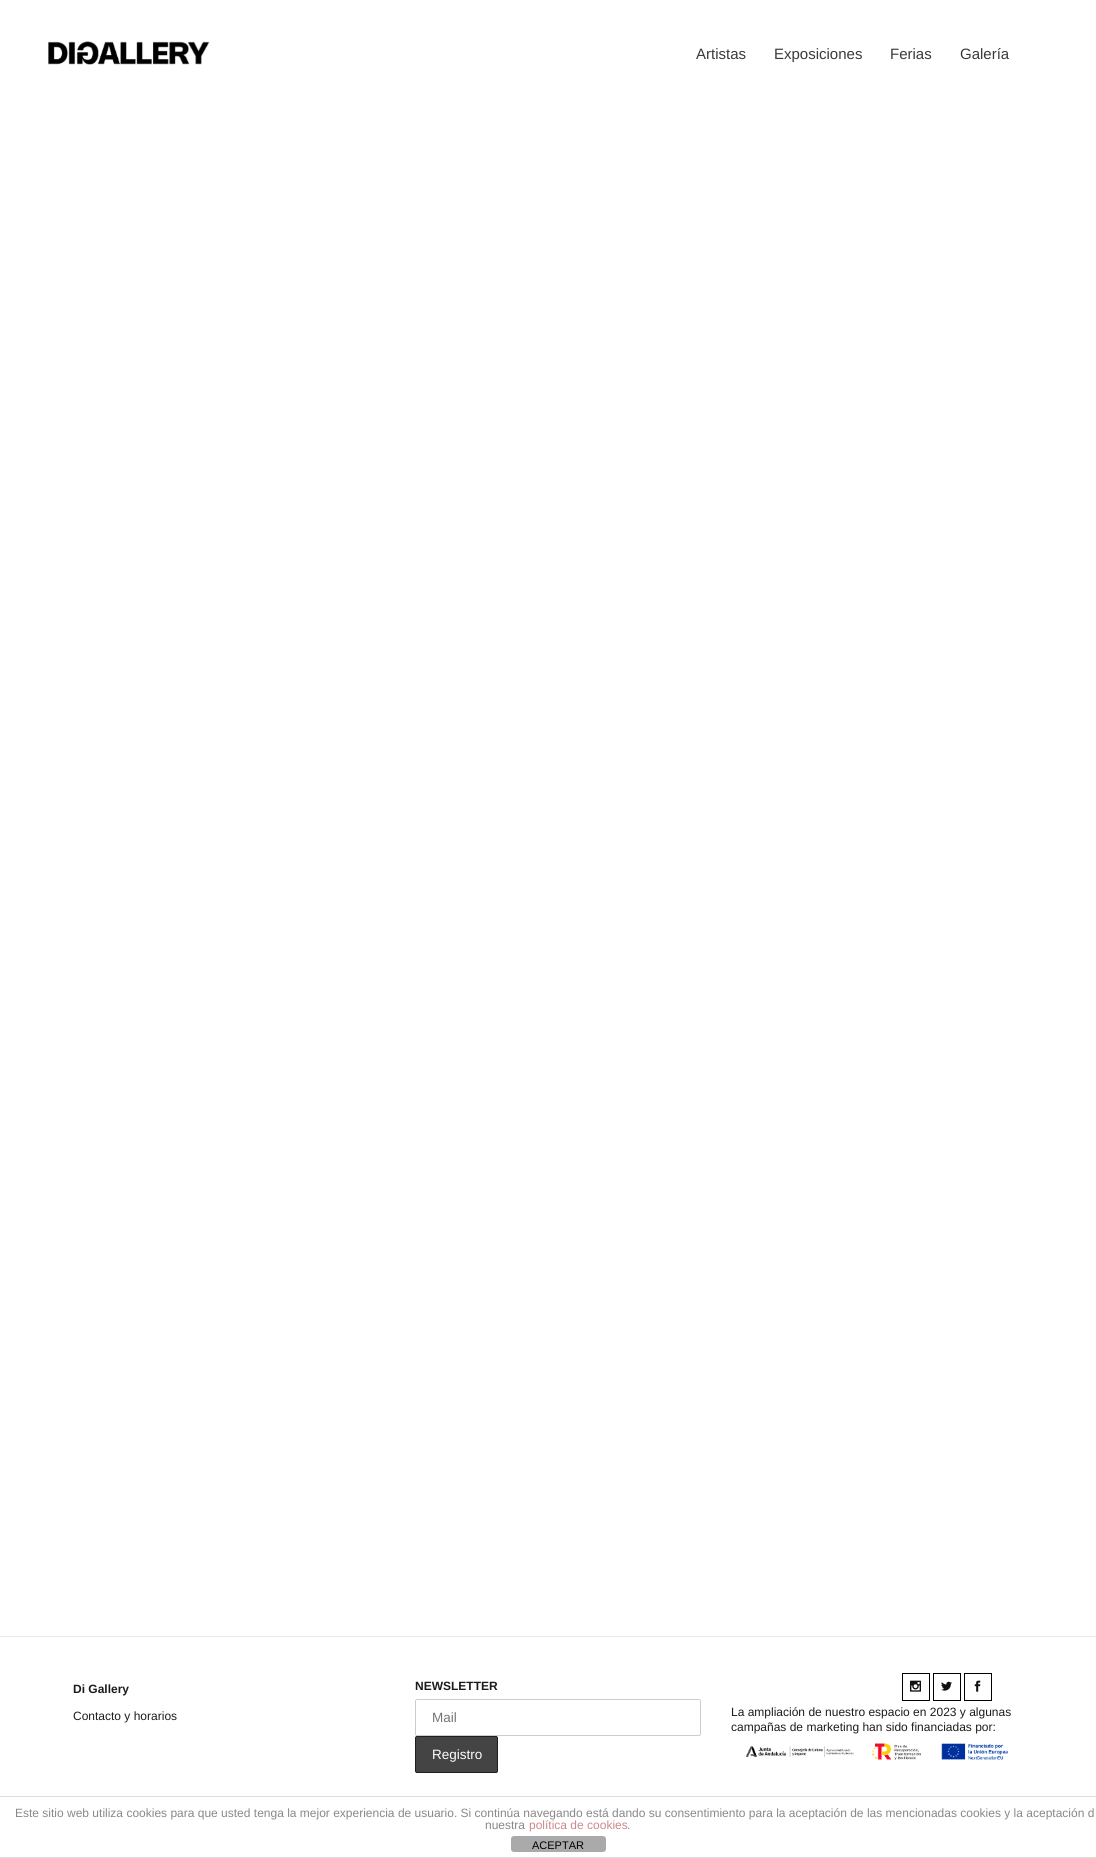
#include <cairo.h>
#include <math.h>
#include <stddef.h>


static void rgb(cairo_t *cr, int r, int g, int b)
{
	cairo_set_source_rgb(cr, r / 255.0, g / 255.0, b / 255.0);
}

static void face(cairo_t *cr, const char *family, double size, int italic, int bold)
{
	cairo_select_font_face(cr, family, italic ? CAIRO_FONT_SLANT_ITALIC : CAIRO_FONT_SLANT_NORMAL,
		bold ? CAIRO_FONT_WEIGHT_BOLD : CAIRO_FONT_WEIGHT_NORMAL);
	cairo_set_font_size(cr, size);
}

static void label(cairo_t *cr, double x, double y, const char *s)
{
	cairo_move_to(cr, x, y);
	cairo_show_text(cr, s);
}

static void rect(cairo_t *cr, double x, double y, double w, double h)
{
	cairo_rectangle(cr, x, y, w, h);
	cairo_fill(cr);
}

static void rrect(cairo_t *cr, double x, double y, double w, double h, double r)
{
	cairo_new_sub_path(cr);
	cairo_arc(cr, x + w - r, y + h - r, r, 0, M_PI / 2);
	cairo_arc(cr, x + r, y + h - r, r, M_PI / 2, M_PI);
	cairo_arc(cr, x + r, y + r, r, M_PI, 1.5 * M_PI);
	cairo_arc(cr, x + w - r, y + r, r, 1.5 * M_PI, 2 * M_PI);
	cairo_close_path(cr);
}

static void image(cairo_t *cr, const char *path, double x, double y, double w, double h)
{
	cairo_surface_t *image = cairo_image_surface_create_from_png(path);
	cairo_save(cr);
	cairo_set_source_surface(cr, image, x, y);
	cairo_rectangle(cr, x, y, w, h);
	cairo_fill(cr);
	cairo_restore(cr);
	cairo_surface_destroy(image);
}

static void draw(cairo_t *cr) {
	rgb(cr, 255, 255, 255);
	cairo_paint(cr);
	image(cr, "image0.png", 48, 41, 162, 24);
	face(cr, "Liberation Sans", 15, 0, 0);
	rgb(cr, 58, 58, 58);
	label(cr, 696, 59, "Artistas");
	label(cr, 774, 59, "Exposiciones");
	label(cr, 890, 59, "Ferias");
	label(cr, 960, 59, "Galería");
	rgb(cr, 234, 234, 234);
	rect(cr, 0, 1636, 1096, 1);
	face(cr, "Liberation Sans", 12, 0, 1);
	rgb(cr, 28, 28, 28);
	label(cr, 73, 1693, "Di Gallery");
	face(cr, "Liberation Sans", 12, 0, 0);
	label(cr, 73, 1720, "Contacto y horarios");
	face(cr, "Liberation Sans", 12, 0, 1);
	label(cr, 415, 1690, "NEWSLETTER");
	rrect(cr, 415.5, 1699.5, 285, 36, 1.5);
	rgb(cr, 204, 204, 204);
	cairo_set_line_width(cr, 1);
	cairo_stroke(cr);
	face(cr, "Liberation Sans", 13.5, 0, 0);
	rgb(cr, 117, 117, 117);
	label(cr, 432, 1722, "Mail");
	rgb(cr, 68, 68, 68);
	rrect(cr, 415.5, 1736.5, 82, 36, 1.5);
	cairo_fill_preserve(cr);
	rgb(cr, 30, 30, 30);
	cairo_stroke(cr);
	rgb(cr, 255, 255, 255);
	label(cr, 432, 1759, "Registro");
	cairo_rectangle(cr, 902.5, 1673.5, 27, 27);
	rgb(cr, 0, 0, 0);
	cairo_stroke(cr);
	image(cr, "image1.png", 910, 1680, 11, 12);
	cairo_rectangle(cr, 933.5, 1673.5, 27, 27);
	cairo_stroke(cr);
	image(cr, "image2.png", 941, 1681, 11, 10);
	cairo_rectangle(cr, 964.5, 1673.5, 27, 27);
	cairo_stroke(cr);
	image(cr, "image3.png", 974, 1680, 7, 12);
	face(cr, "Liberation Sans", 12, 0, 0);
	rgb(cr, 28, 28, 28);
	label(cr, 731, 1716, "La ampliación de nuestro espacio en 2023 y algunas");
	label(cr, 731, 1731, "campañas de marketing han sido financiadas por:");
	image(cr, "image4.png", 746, 1743, 262, 17);
	rgb(cr, 221, 221, 221);
	rect(cr, 0, 1796, 1096, 1);
	rect(cr, 0, 1857, 1096, 1);
	rgb(cr, 136, 136, 136);
	label(cr, 15, 1817, "Este sitio web utiliza cookies para que usted tenga la mejor experiencia de usuario. Si continúa navegando está dando su consentimiento para la aceptación de las mencionadas cookies y la aceptación d");
	label(cr, 485, 1829, "nuestra");
	rgb(cr, 204, 136, 136);
	label(cr, 529, 1829, "política de cookies");
	rgb(cr, 136, 136, 136);
	label(cr, 627, 1829, ".");
	rgb(cr, 170, 170, 170);
	rrect(cr, 511, 1836, 95, 16, 3);
	cairo_fill(cr);
	face(cr, "Liberation Sans", 11, 0, 0);
	rgb(cr, 0, 0, 0);
	label(cr, 532, 1849, "ACEPTAR");
}

int main(void) {
	cairo_surface_t *surface = cairo_image_surface_create(CAIRO_FORMAT_RGB24, 1096, 1858);
	cairo_t *cr = cairo_create(surface);
	cairo_font_options_t *options = cairo_font_options_create();
	cairo_font_options_set_hint_metrics(options, CAIRO_HINT_METRICS_OFF);
	cairo_font_options_set_hint_style(options, CAIRO_HINT_STYLE_NONE);
	cairo_set_font_options(cr, options);
	cairo_set_miter_limit(cr, 4);
	draw(cr);
	cairo_surface_write_to_png(surface, "render.png");
	cairo_font_options_destroy(options);
	cairo_destroy(cr);
	cairo_surface_destroy(surface);
	return 0;
}
